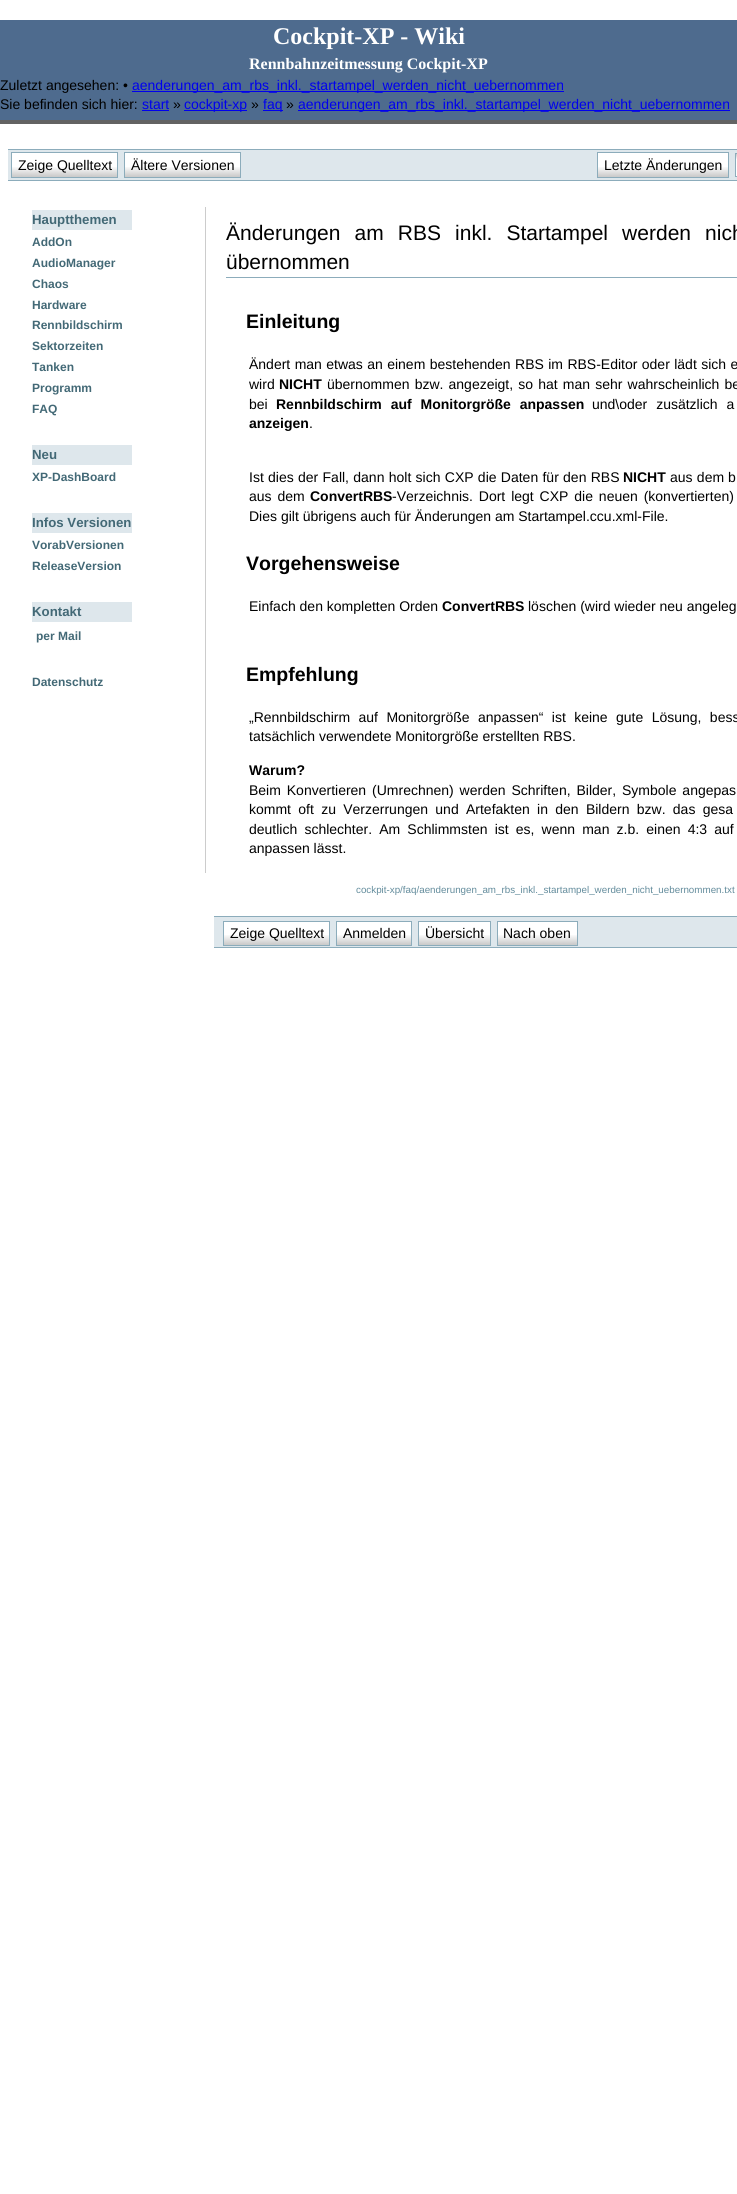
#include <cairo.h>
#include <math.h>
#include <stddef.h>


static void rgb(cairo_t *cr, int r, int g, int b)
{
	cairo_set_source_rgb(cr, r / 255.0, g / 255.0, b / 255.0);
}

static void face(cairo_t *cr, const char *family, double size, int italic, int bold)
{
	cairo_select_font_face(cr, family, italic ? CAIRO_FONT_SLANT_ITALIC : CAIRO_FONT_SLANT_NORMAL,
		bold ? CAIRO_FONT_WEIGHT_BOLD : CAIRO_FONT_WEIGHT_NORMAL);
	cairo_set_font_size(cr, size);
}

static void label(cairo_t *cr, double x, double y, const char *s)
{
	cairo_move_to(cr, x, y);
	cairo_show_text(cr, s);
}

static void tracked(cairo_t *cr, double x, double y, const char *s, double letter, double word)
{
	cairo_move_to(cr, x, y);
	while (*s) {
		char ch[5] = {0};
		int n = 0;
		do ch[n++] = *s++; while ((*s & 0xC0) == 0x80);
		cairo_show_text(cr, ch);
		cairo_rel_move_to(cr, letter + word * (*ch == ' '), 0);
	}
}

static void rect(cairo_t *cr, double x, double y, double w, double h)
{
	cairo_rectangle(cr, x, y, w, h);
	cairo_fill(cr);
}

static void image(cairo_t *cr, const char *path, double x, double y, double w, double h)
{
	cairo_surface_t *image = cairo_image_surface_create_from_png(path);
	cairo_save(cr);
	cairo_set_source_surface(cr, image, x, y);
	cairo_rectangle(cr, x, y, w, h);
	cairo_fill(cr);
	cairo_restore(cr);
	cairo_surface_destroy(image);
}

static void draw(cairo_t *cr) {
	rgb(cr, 255, 255, 255);
	cairo_paint(cr);
	rgb(cr, 78, 107, 142);
	rect(cr, 0, 20, 737, 100);
	rgb(cr, 99, 99, 99);
	rect(cr, 0, 120, 737, 4);
	face(cr, "Liberation Serif", 24, 0, 1);
	rgb(cr, 255, 255, 255);
	label(cr, 273, 44, "Cockpit-XP - Wiki");
	face(cr, "Liberation Serif", 16, 0, 1);
	label(cr, 249, 69, "Rennbahnzeitmessung Cockpit-XP");
	face(cr, "Liberation Sans", 14, 0, 0);
	rgb(cr, 0, 0, 0);
	label(cr, 0, 90, "Zuletzt angesehen: •");
	rgb(cr, 0, 0, 238);
	rect(cr, 132, 91, 432, 1);
	label(cr, 132, 90, "aenderungen_am_rbs_inkl._startampel_werden_nicht_uebernommen");
	rgb(cr, 0, 0, 0);
	label(cr, 0, 109, "Sie befinden sich hier:");
	rgb(cr, 0, 0, 238);
	label(cr, 142, 109, "start");
	rect(cr, 142, 110, 27, 1);
	rgb(cr, 0, 0, 0);
	label(cr, 173, 109, "»");
	rgb(cr, 0, 0, 238);
	rect(cr, 184, 110, 63, 1);
	label(cr, 184, 109, "cockpit-xp");
	rgb(cr, 0, 0, 0);
	label(cr, 251, 109, "»");
	rgb(cr, 0, 0, 238);
	rect(cr, 263, 110, 20, 1);
	label(cr, 263, 109, "faq");
	rgb(cr, 0, 0, 0);
	label(cr, 286, 109, "»");
	rgb(cr, 0, 0, 238);
	rect(cr, 298, 110, 432, 1);
	label(cr, 298, 109, "aenderungen_am_rbs_inkl._startampel_werden_nicht_uebernommen");
	rgb(cr, 222, 231, 236);
	rect(cr, 8, 150, 729, 30);
	rgb(cr, 140, 172, 187);
	rect(cr, 8, 149, 729, 1);
	rect(cr, 8, 180, 729, 1);
	rgb(cr, 255, 255, 255);
	rect(cr, 12, 153, 105, 23);
	image(cr, "image0.png", 12, 167, 105, 10);
	cairo_rectangle(cr, 11.5, 152.5, 106, 25);
	rgb(cr, 140, 172, 187);
	cairo_set_line_width(cr, 1);
	cairo_stroke(cr);
	rgb(cr, 0, 0, 0);
	label(cr, 18, 170, "Zeige Quelltext");
	rgb(cr, 255, 255, 255);
	rect(cr, 125, 153, 115, 23);
	image(cr, "image1.png", 125, 167, 115, 10);
	cairo_rectangle(cr, 124.5, 152.5, 116, 25);
	rgb(cr, 140, 172, 187);
	cairo_stroke(cr);
	rgb(cr, 0, 0, 0);
	label(cr, 131, 170, "Ältere Versionen");
	rgb(cr, 255, 255, 255);
	rect(cr, 598, 153, 130, 23);
	image(cr, "image2.png", 598, 167, 130, 10);
	cairo_rectangle(cr, 597.5, 152.5, 131, 25);
	rgb(cr, 140, 172, 187);
	cairo_stroke(cr);
	rgb(cr, 0, 0, 0);
	label(cr, 604, 170, "Letzte Änderungen");
	rgb(cr, 255, 255, 255);
	rect(cr, 736, 153, 1, 24);
	image(cr, "image3.png", 736, 154, 1, 5);
	cairo_rectangle(cr, 735.5, 153.5, 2, 23);
	rgb(cr, 140, 172, 187);
	cairo_stroke(cr);
	rgb(cr, 222, 231, 236);
	rect(cr, 32, 210, 100, 20);
	face(cr, "Liberation Sans", 13.25, 0, 1);
	rgb(cr, 67, 105, 118);
	label(cr, 32, 224, "Hauptthemen");
	face(cr, "Liberation Sans", 12, 0, 1);
	label(cr, 32, 246, "AddOn");
	label(cr, 32, 267, "AudioManager");
	label(cr, 32, 288, "Chaos");
	label(cr, 32, 309, "Hardware");
	label(cr, 32, 329, "Rennbildschirm");
	label(cr, 32, 350, "Sektorzeiten");
	label(cr, 32, 371, "Tanken");
	label(cr, 32, 392, "Programm");
	label(cr, 32, 413, "FAQ");
	rgb(cr, 222, 231, 236);
	rect(cr, 32, 445, 100, 20);
	face(cr, "Liberation Sans", 13.25, 0, 1);
	rgb(cr, 67, 105, 118);
	label(cr, 32, 459, "Neu");
	face(cr, "Liberation Sans", 12, 0, 1);
	label(cr, 32, 481, "XP-DashBoard");
	rgb(cr, 222, 231, 236);
	rect(cr, 32, 513, 100, 20);
	face(cr, "Liberation Sans", 13.25, 0, 1);
	rgb(cr, 67, 105, 118);
	label(cr, 32, 527, "Infos Versionen");
	face(cr, "Liberation Sans", 12, 0, 1);
	label(cr, 32, 549, "VorabVersionen");
	label(cr, 32, 570, "ReleaseVersion");
	rgb(cr, 222, 231, 236);
	rect(cr, 32, 602, 100, 20);
	face(cr, "Liberation Sans", 13.25, 0, 1);
	rgb(cr, 67, 105, 118);
	label(cr, 32, 616, "Kontakt");
	face(cr, "Liberation Sans", 12, 0, 1);
	label(cr, 36, 640, "per Mail");
	label(cr, 32, 686, "Datenschutz");
	rgb(cr, 204, 204, 204);
	rect(cr, 205, 207, 1, 666);
	rgb(cr, 140, 172, 187);
	rect(cr, 226, 277, 511, 1);
	face(cr, "Liberation Sans", 21, 0, 0);
	rgb(cr, 0, 0, 0);
	tracked(cr, 226, 240, "Änderungen am RBS inkl. Startampel werden nich", 0, 8.25);
	label(cr, 226, 269, "übernommen");
	face(cr, "Liberation Sans", 19.5, 0, 1);
	label(cr, 246, 328, "Einleitung");
	face(cr, "Liberation Sans", 14, 0, 0);
	tracked(cr, 249, 369, "Ändert man etwas an einem bestehenden RBS im RBS-Editor oder lädt sich e", 0, 0.5);
	label(cr, 249, 389, "wird");
	face(cr, "Liberation Sans", 14, 0, 1);
	label(cr, 279, 389, "NICHT");
	face(cr, "Liberation Sans", 14, 0, 0);
	tracked(cr, 327, 389, "übernommen bzw. angezeigt, so hat man sehr wahrscheinlich be", 0, 1.25);
	label(cr, 249, 409, "bei");
	face(cr, "Liberation Sans", 14, 0, 1);
	tracked(cr, 276, 409, "Rennbildschirm auf Monitorgröße anpassen", 0, 5);
	face(cr, "Liberation Sans", 14, 0, 0);
	tracked(cr, 592, 409, "und\\oder zusätzlich a", 0, 5);
	face(cr, "Liberation Sans", 14, 0, 1);
	label(cr, 249, 428, "anzeigen");
	face(cr, "Liberation Sans", 14, 0, 0);
	label(cr, 309, 428, ".");
	tracked(cr, 249, 482, "Ist dies der Fall, dann holt sich CXP die Daten für den RBS", 0, 0.4);
	face(cr, "Liberation Sans", 14, 0, 1);
	label(cr, 623, 482, "NICHT");
	face(cr, "Liberation Sans", 14, 0, 0);
	tracked(cr, 670, 482, "aus dem", 0, 0.4);
	label(cr, 728, 482, "b");
	tracked(cr, 249, 501, "aus dem", 0, 2);
	face(cr, "Liberation Sans", 14, 0, 1);
	label(cr, 310, 501, "ConvertRBS");
	face(cr, "Liberation Sans", 14, 0, 0);
	tracked(cr, 392, 501, "-Verzeichnis. Dort legt CXP die neuen (konvertierten)", 0, 2);
	label(cr, 249, 521, "Dies gilt übrigens auch für Änderungen am Startampel.ccu.xml-File.");
	face(cr, "Liberation Sans", 19.5, 0, 1);
	label(cr, 246, 570, "Vorgehensweise");
	face(cr, "Liberation Sans", 14, 0, 0);
	label(cr, 249, 611, "Einfach den kompletten Orden");
	face(cr, "Liberation Sans", 14, 0, 1);
	label(cr, 442, 611, "ConvertRBS");
	face(cr, "Liberation Sans", 14, 0, 0);
	label(cr, 528, 611, "löschen (wird wieder neu angeleg");
	face(cr, "Liberation Sans", 19.5, 0, 1);
	label(cr, 246, 681, "Empfehlung");
	face(cr, "Liberation Sans", 14, 0, 0);
	tracked(cr, 249, 722, "„Rennbildschirm auf Monitorgröße anpassen“ ist keine gute Lösung, bess", 0, 4.5);
	label(cr, 249, 741, "tatsächlich verwendete Monitorgröße erstellten RBS.");
	face(cr, "Liberation Sans", 14, 0, 1);
	label(cr, 249, 775, "Warum?");
	face(cr, "Liberation Sans", 14, 0, 0);
	tracked(cr, 249, 795, "Beim Konvertieren (Umrechnen) werden Schriften, Bilder, Symbole angepas", 0, 2);
	tracked(cr, 249, 814, "kommt oft zu Verzerrungen und Artefakten in den Bildern bzw. das gesa", 0, 3.4);
	tracked(cr, 249, 834, "deutlich schlechter. Am Schlimmsten ist es, wenn man z.b. einen 4:3 auf", 0, 3.25);
	label(cr, 249, 853, "anpassen lässt.");
	face(cr, "Liberation Sans", 9.8, 0, 0);
	rgb(cr, 99, 140, 156);
	label(cr, 356, 893, "cockpit-xp/faq/aenderungen_am_rbs_inkl._startampel_werden_nicht_uebernommen.txt");
	rgb(cr, 222, 231, 236);
	rect(cr, 214, 917, 523, 30);
	rgb(cr, 140, 172, 187);
	rect(cr, 214, 916, 523, 1);
	rect(cr, 214, 947, 523, 1);
	rgb(cr, 255, 255, 255);
	rect(cr, 224, 922, 105, 22);
	image(cr, "image0.png", 224, 935, 105, 10);
	cairo_rectangle(cr, 223.5, 921.5, 106, 24);
	rgb(cr, 140, 172, 187);
	cairo_stroke(cr);
	face(cr, "Liberation Sans", 14, 0, 0);
	rgb(cr, 0, 0, 0);
	label(cr, 230, 938, "Zeige Quelltext");
	rgb(cr, 255, 255, 255);
	rect(cr, 337, 922, 74, 22);
	image(cr, "image4.png", 337, 935, 74, 10);
	cairo_rectangle(cr, 336.5, 921.5, 75, 24);
	rgb(cr, 140, 172, 187);
	cairo_stroke(cr);
	rgb(cr, 0, 0, 0);
	label(cr, 343, 938, "Anmelden");
	rgb(cr, 255, 255, 255);
	rect(cr, 419, 922, 71, 22);
	image(cr, "image5.png", 419, 935, 71, 10);
	cairo_rectangle(cr, 418.5, 921.5, 72, 24);
	rgb(cr, 140, 172, 187);
	cairo_stroke(cr);
	rgb(cr, 0, 0, 0);
	label(cr, 425, 938, "Übersicht");
	rgb(cr, 255, 255, 255);
	rect(cr, 498, 922, 79, 22);
	image(cr, "image6.png", 498, 935, 79, 10);
	cairo_rectangle(cr, 497.5, 921.5, 80, 24);
	rgb(cr, 140, 172, 187);
	cairo_stroke(cr);
	rgb(cr, 0, 0, 0);
	label(cr, 503, 938, "Nach oben");
}

int main(void) {
	cairo_surface_t *surface = cairo_image_surface_create(CAIRO_FORMAT_RGB24, 737, 2194);
	cairo_t *cr = cairo_create(surface);
	cairo_font_options_t *options = cairo_font_options_create();
	cairo_font_options_set_hint_metrics(options, CAIRO_HINT_METRICS_OFF);
	cairo_font_options_set_hint_style(options, CAIRO_HINT_STYLE_NONE);
	cairo_set_font_options(cr, options);
	cairo_set_miter_limit(cr, 4);
	draw(cr);
	cairo_surface_write_to_png(surface, "render.png");
	cairo_font_options_destroy(options);
	cairo_destroy(cr);
	cairo_surface_destroy(surface);
	return 0;
}
